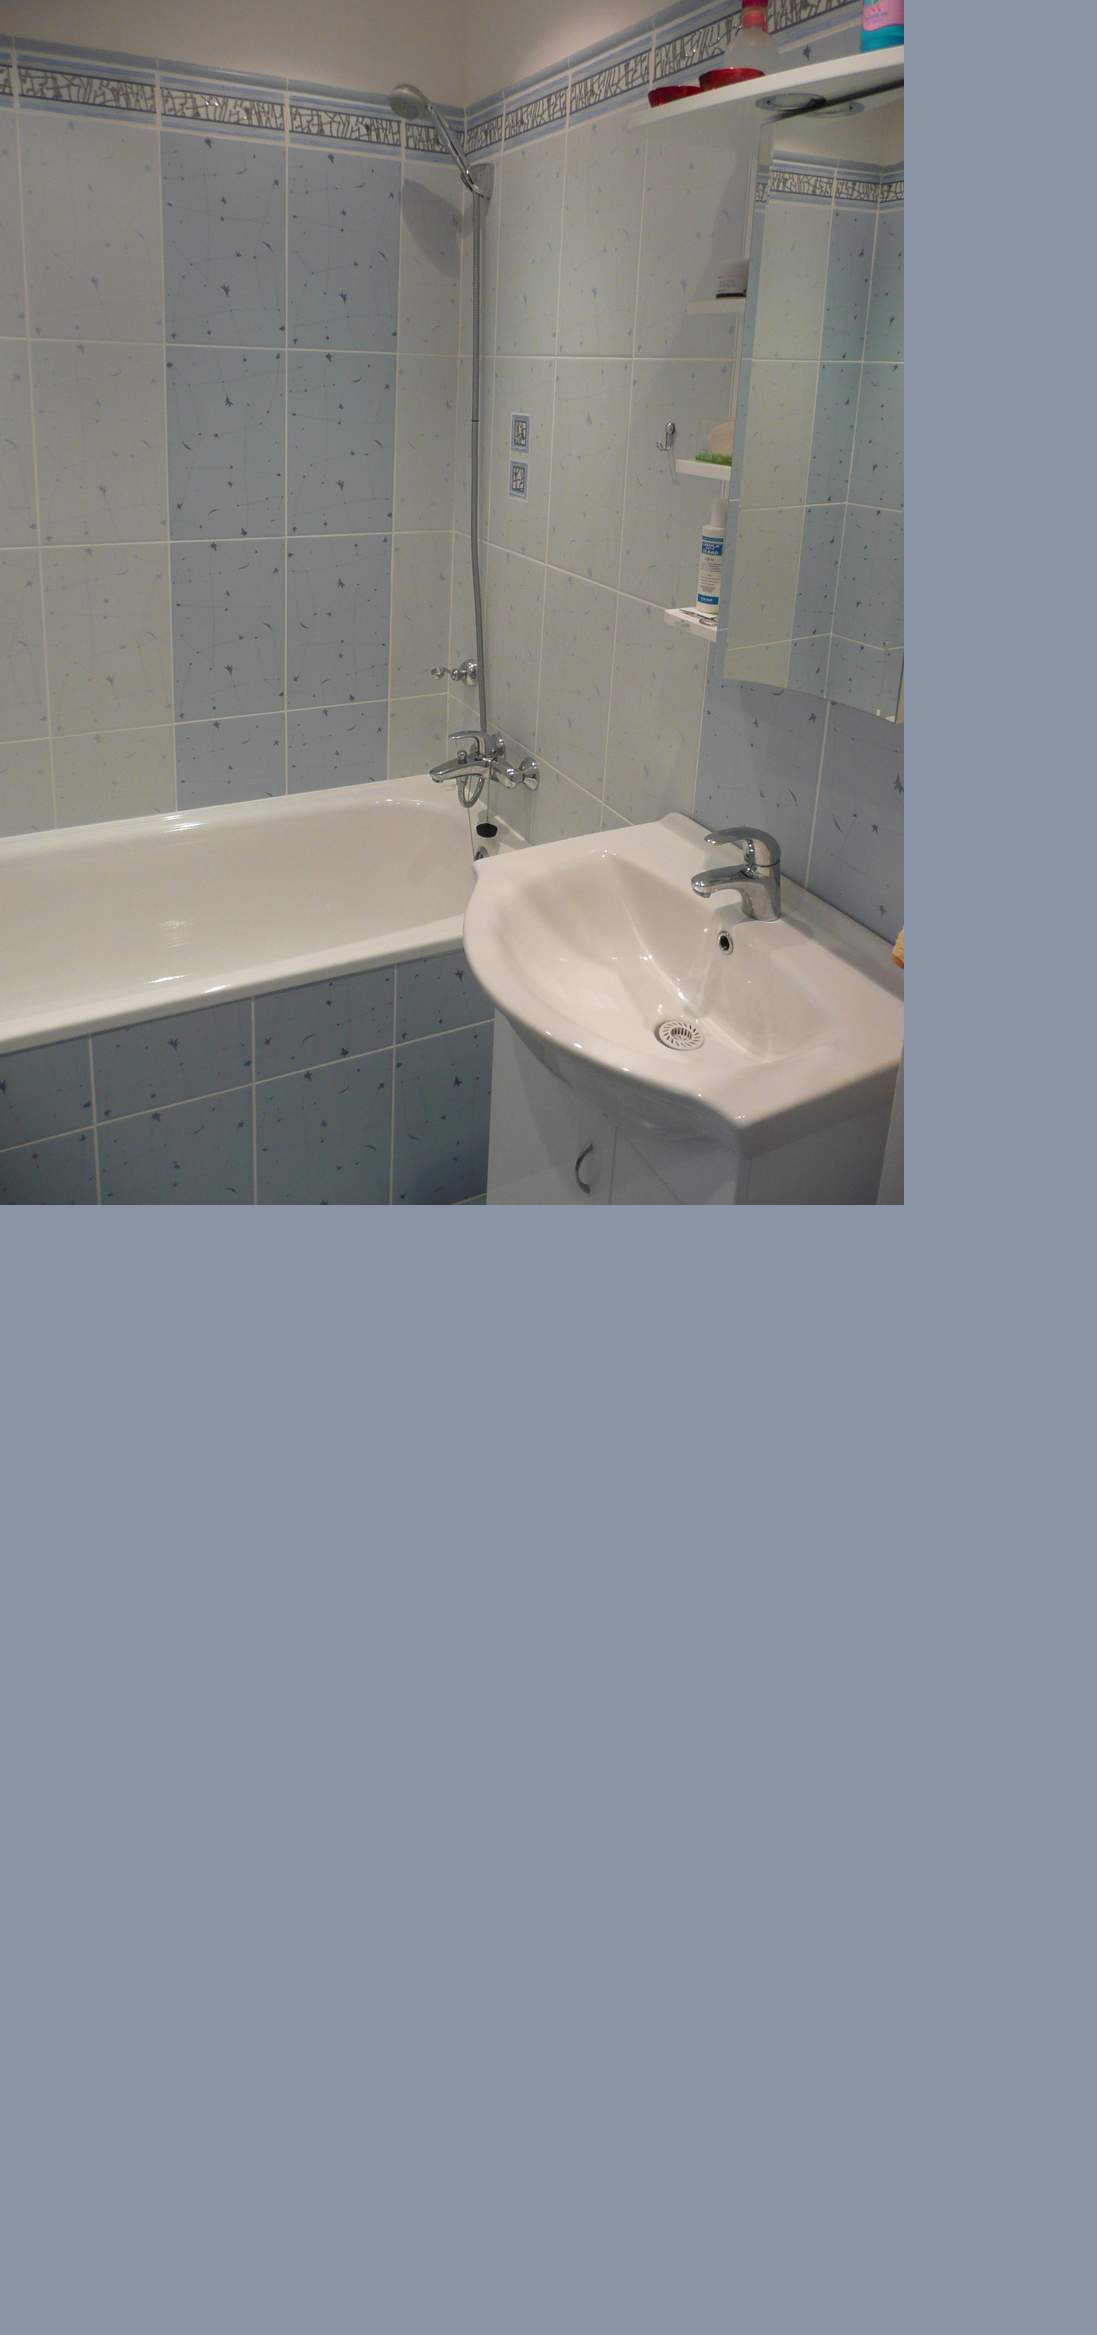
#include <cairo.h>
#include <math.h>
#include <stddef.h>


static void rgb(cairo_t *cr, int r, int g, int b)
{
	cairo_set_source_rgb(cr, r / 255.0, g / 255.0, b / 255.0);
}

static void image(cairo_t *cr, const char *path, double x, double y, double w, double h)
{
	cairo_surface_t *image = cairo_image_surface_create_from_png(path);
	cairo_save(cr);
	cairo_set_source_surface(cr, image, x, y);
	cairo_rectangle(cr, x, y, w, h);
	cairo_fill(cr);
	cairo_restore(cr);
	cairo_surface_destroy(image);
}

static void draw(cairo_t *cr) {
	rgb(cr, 139, 148, 165);
	cairo_paint(cr);
	image(cr, "image0.png", 0, 0, 904, 1205);
}

int main(void) {
	cairo_surface_t *surface = cairo_image_surface_create(CAIRO_FORMAT_RGB24, 1097, 2335);
	cairo_t *cr = cairo_create(surface);
	cairo_font_options_t *options = cairo_font_options_create();
	cairo_font_options_set_hint_metrics(options, CAIRO_HINT_METRICS_OFF);
	cairo_font_options_set_hint_style(options, CAIRO_HINT_STYLE_NONE);
	cairo_set_font_options(cr, options);
	cairo_set_miter_limit(cr, 4);
	draw(cr);
	cairo_surface_write_to_png(surface, "render.png");
	cairo_font_options_destroy(options);
	cairo_destroy(cr);
	cairo_surface_destroy(surface);
	return 0;
}
